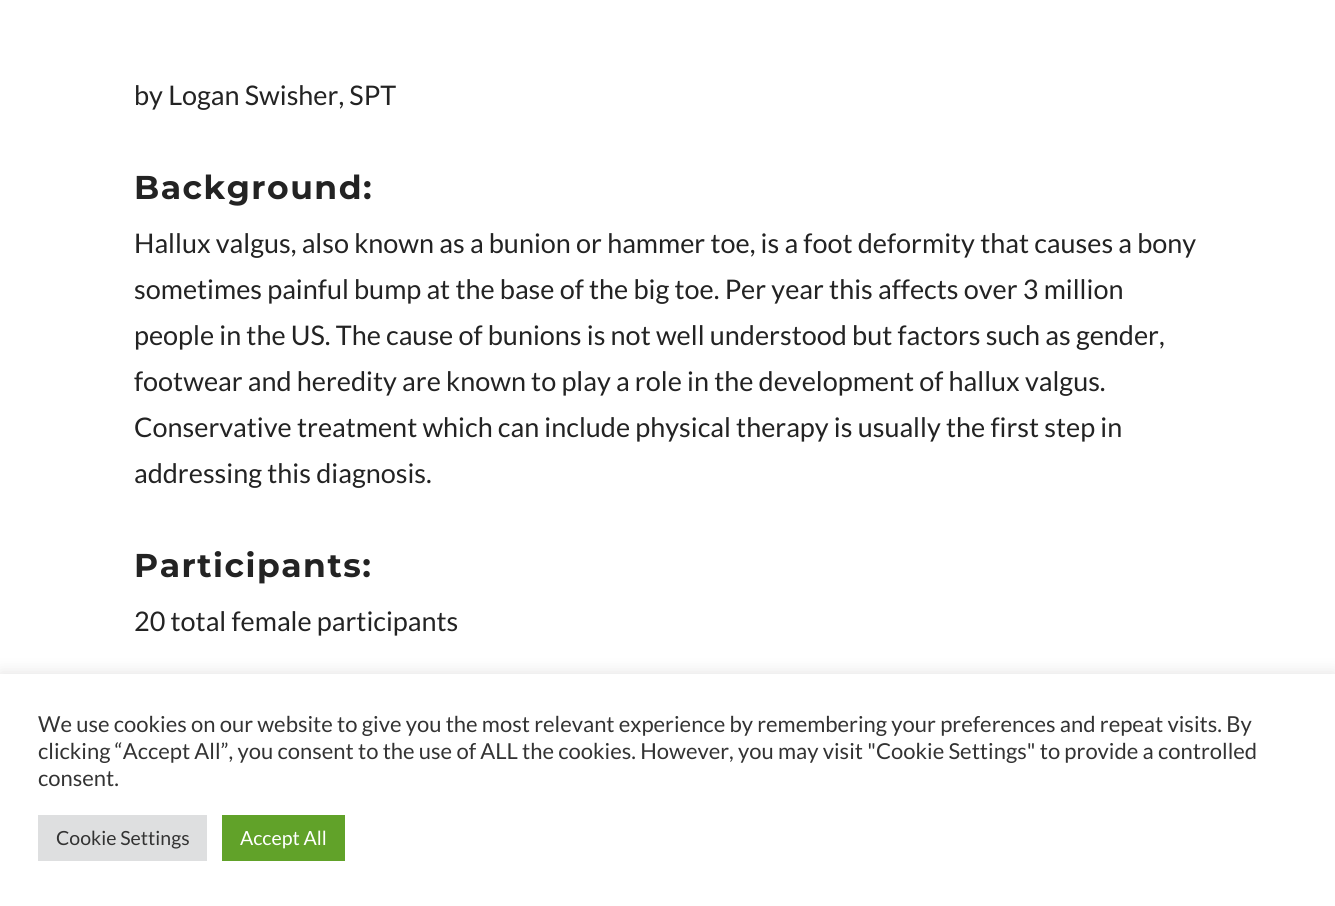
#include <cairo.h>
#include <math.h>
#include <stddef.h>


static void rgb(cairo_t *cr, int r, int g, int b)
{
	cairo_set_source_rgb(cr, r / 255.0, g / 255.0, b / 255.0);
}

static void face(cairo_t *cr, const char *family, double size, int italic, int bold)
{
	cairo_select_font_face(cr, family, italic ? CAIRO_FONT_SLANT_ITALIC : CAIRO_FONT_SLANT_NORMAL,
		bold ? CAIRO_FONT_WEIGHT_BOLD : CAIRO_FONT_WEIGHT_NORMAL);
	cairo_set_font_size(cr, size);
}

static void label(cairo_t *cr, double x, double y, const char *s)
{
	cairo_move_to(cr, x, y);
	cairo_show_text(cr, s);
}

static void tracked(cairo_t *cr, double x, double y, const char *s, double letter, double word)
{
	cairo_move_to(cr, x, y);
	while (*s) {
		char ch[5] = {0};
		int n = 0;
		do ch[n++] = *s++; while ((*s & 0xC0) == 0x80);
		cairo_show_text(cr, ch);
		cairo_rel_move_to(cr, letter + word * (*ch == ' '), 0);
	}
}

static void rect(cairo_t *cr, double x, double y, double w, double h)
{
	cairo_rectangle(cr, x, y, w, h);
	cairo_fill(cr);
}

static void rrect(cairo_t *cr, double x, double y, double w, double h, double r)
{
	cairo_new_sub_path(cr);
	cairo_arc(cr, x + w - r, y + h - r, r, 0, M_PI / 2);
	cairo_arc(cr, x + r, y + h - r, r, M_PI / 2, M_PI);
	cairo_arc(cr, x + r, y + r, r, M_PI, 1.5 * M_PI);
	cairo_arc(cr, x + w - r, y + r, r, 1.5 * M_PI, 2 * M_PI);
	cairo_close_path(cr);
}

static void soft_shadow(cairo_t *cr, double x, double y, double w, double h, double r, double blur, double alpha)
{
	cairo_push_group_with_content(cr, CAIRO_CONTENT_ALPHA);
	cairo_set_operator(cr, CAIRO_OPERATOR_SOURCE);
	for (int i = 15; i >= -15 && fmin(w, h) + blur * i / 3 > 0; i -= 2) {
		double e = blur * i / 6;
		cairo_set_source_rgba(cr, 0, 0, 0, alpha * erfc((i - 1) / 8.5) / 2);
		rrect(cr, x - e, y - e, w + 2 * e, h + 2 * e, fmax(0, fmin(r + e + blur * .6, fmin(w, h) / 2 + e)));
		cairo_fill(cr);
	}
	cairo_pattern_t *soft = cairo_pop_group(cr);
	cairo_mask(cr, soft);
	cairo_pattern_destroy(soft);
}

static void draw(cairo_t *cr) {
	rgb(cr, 255, 255, 255);
	cairo_paint(cr);
	face(cr, "Lato", 27, 0, 0);
	rgb(cr, 35, 35, 35);
	label(cr, 134, 105, "by Logan Swisher, SPT");
	face(cr, "Montserrat Thin", 33, 0, 0);
	tracked(cr, 134, 199, "Background:", 1.5, 0);
	face(cr, "Lato", 27, 0, 0);
	label(cr, 134, 253, "Hallux valgus, also known as a bunion or hammer toe, is a foot deformity that causes a bony");
	label(cr, 134, 299, "sometimes painful bump at the base of the big toe. Per year this affects over 3 million");
	label(cr, 134, 345, "people in the US. The cause of bunions is not well understood but factors such as gender,");
	label(cr, 134, 391, "footwear and heredity are known to play a role in the development of hallux valgus.");
	label(cr, 134, 437, "Conservative treatment which can include physical therapy is usually the first step in");
	label(cr, 134, 483, "addressing this diagnosis.");
	face(cr, "Montserrat Thin", 33, 0, 0);
	tracked(cr, 134, 577, "Participants:", 1.5, 0);
	face(cr, "Lato", 27, 0, 0);
	label(cr, 134, 631, "20 total female participants");
	rgb(cr, 172, 171, 171);
	soft_shadow(cr, 0, 672, 1335, 233, 0, 7.5, 0.3);
	rgb(cr, 255, 255, 255);
	rect(cr, 0, 674, 1335, 232);
	face(cr, "Lato", 22, 0, 0);
	rgb(cr, 51, 51, 51);
	label(cr, 38, 732, "We use cookies on our website to give you the most relevant experience by remembering your preferences and repeat visits. By");
	label(cr, 38, 759, "clicking “Accept All”, you consent to the use of ALL the cookies. However, you may visit \"Cookie Settings\" to provide a controlled");
	label(cr, 38, 786, "consent.");
	rgb(cr, 222, 223, 224);
	rect(cr, 38, 815, 169, 46);
	face(cr, "Lato", 19.5, 0, 0);
	rgb(cr, 51, 51, 51);
	label(cr, 56, 845, "Cookie Settings");
	rgb(cr, 97, 162, 41);
	rect(cr, 222, 815, 123, 46);
	rgb(cr, 255, 255, 255);
	label(cr, 240, 845, "Accept All");
}

int main(void) {
	cairo_surface_t *surface = cairo_image_surface_create(CAIRO_FORMAT_RGB24, 1335, 906);
	cairo_t *cr = cairo_create(surface);
	cairo_font_options_t *options = cairo_font_options_create();
	cairo_font_options_set_hint_metrics(options, CAIRO_HINT_METRICS_OFF);
	cairo_font_options_set_hint_style(options, CAIRO_HINT_STYLE_NONE);
	cairo_set_font_options(cr, options);
	cairo_set_miter_limit(cr, 4);
	draw(cr);
	cairo_surface_write_to_png(surface, "render.png");
	cairo_font_options_destroy(options);
	cairo_destroy(cr);
	cairo_surface_destroy(surface);
	return 0;
}
